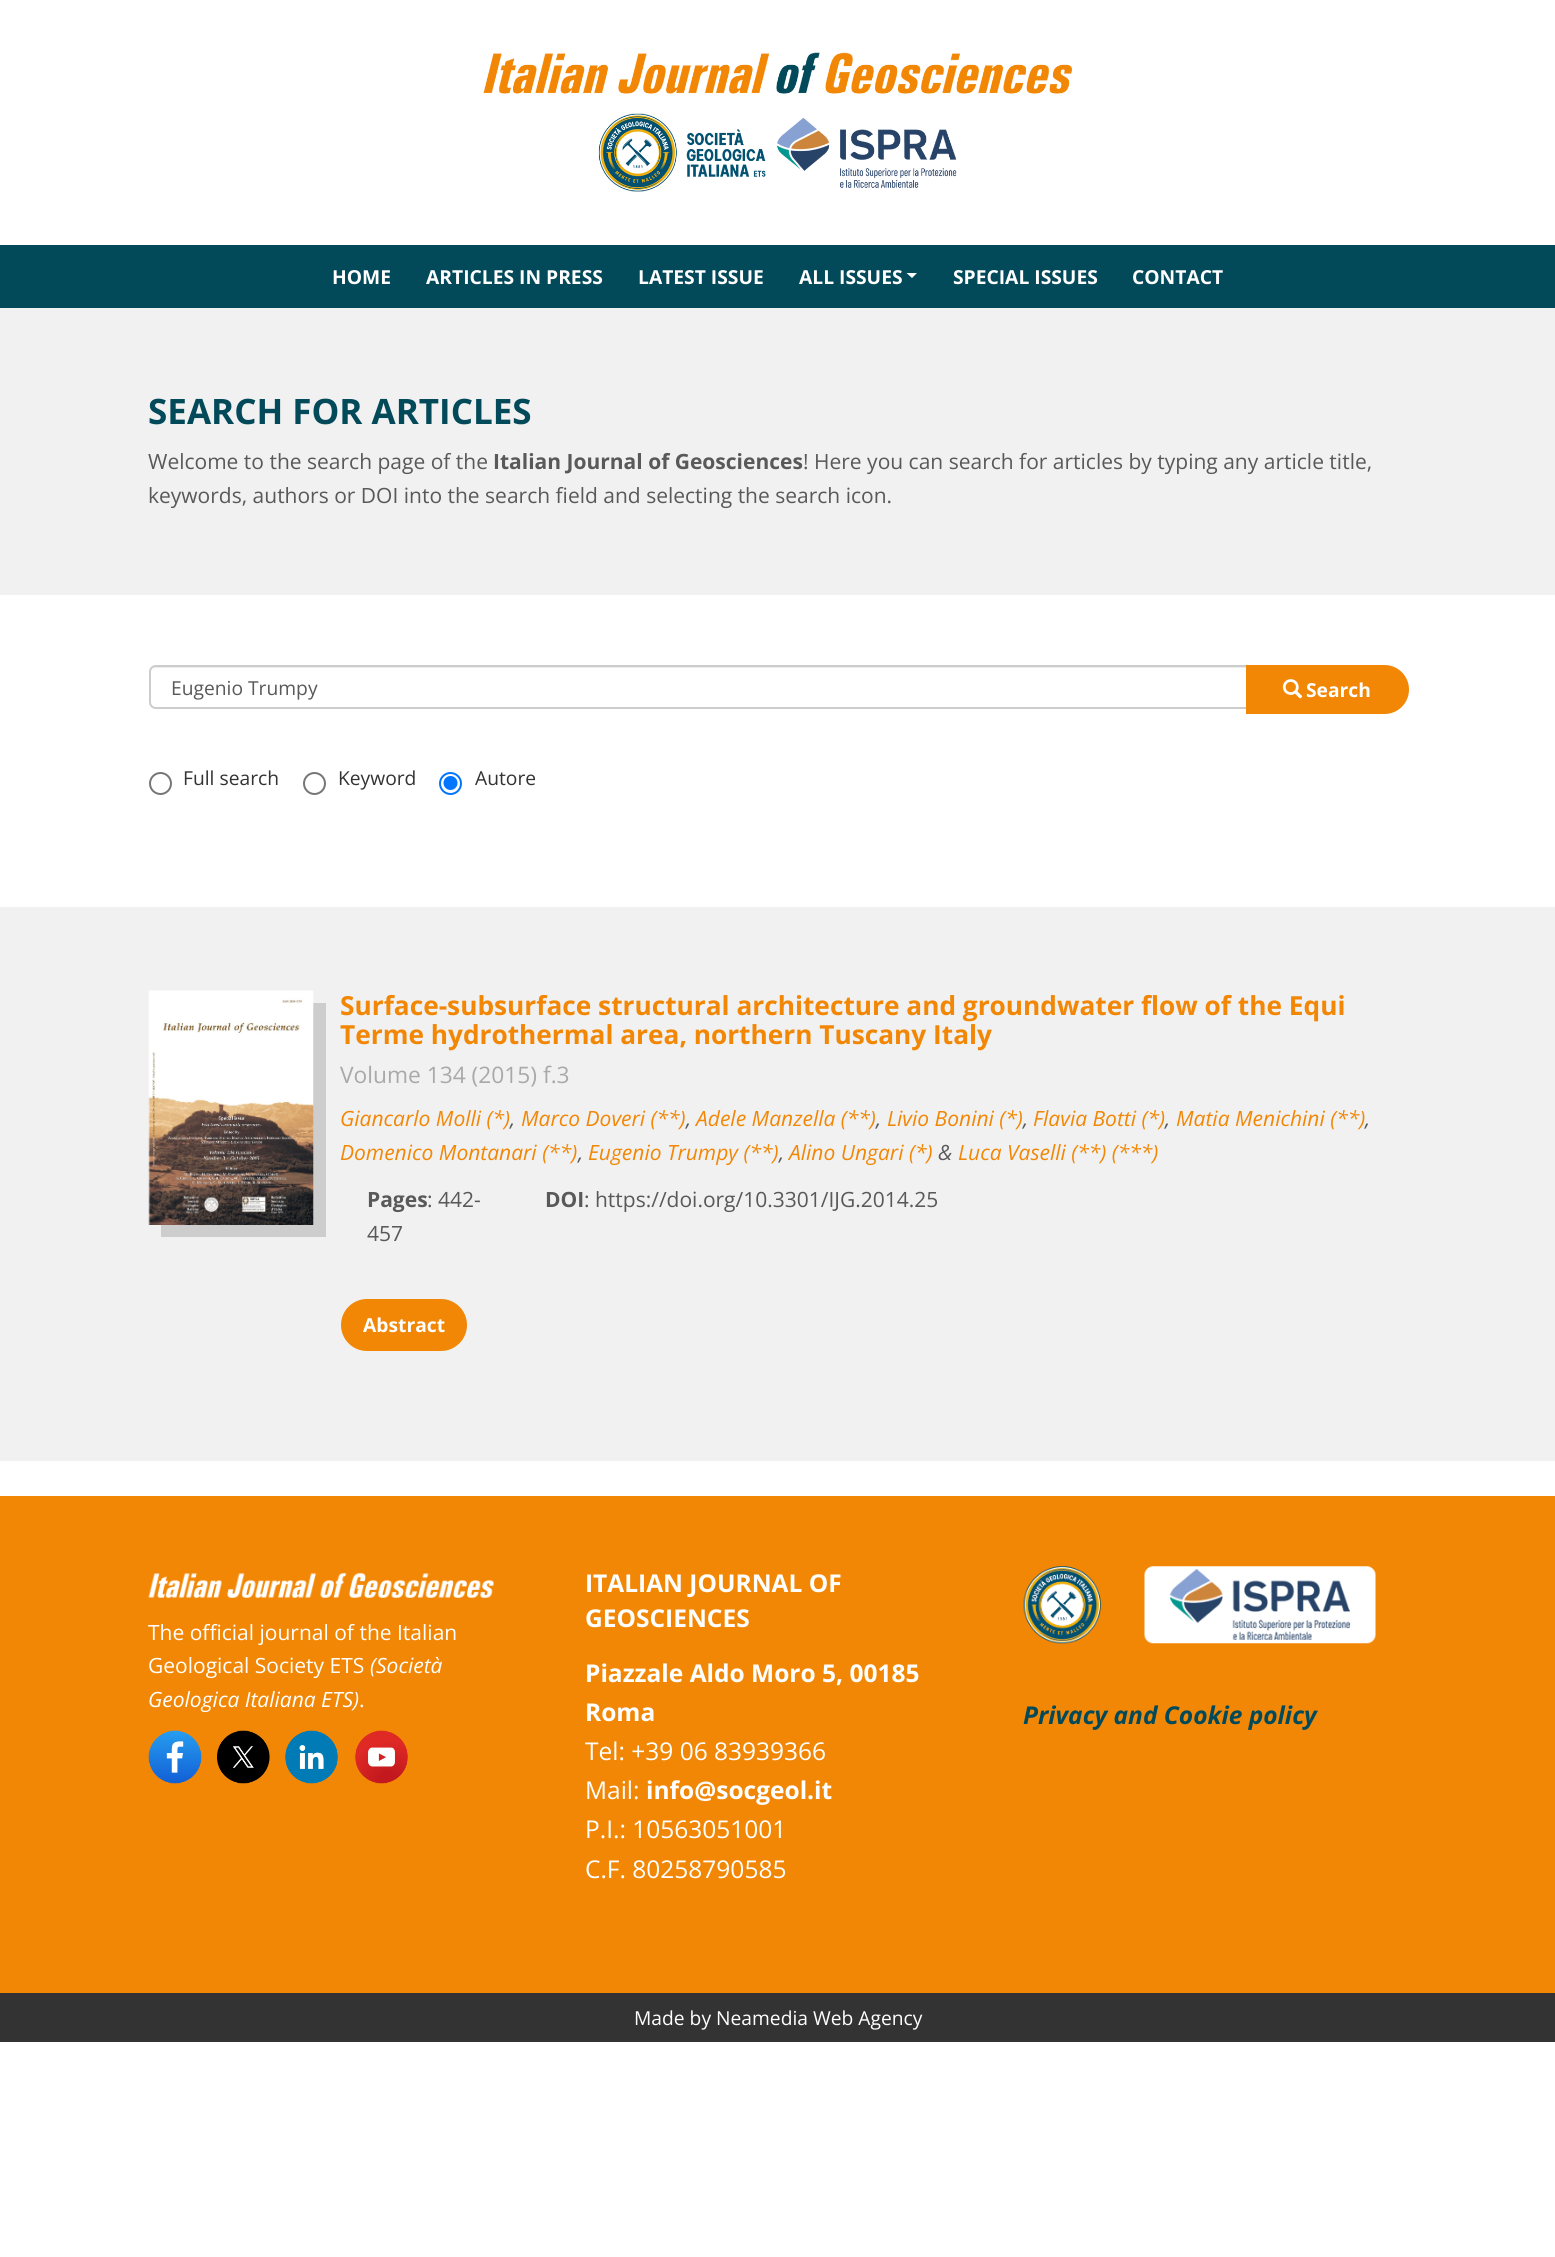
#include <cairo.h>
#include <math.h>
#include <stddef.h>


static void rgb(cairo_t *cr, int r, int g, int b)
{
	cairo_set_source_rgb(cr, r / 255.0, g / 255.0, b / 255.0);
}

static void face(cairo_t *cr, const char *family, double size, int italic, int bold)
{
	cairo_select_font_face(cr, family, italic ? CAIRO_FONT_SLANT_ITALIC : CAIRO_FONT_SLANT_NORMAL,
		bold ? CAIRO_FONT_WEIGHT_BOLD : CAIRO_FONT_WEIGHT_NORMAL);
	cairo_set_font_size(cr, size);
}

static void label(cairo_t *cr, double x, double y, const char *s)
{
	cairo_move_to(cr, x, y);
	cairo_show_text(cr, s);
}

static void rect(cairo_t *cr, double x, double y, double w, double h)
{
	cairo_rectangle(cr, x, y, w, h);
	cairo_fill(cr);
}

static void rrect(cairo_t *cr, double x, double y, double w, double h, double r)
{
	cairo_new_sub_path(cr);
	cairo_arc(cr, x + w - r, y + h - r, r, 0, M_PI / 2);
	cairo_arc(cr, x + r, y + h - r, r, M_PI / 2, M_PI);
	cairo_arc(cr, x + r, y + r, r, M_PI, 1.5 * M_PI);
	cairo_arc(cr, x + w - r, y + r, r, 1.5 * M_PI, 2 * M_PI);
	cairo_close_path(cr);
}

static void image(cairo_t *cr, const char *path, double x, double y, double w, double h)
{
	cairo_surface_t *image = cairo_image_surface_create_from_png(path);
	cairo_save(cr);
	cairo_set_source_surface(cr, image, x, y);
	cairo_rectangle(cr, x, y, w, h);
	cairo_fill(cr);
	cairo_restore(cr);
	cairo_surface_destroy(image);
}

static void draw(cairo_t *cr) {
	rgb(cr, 255, 255, 255);
	cairo_paint(cr);
	rgb(cr, 2, 73, 89);
	rect(cr, 0, 245, 1555, 63);
	image(cr, "image0.png", 483, 52, 589, 140);
	face(cr, "Open Sans", 19.25, 0, 1);
	rgb(cr, 255, 255, 255);
	label(cr, 332, 284, "HOME");
	label(cr, 426, 284, "ARTICLES IN PRESS");
	label(cr, 638, 284, "LATEST ISSUE");
	label(cr, 799, 284, "ALL ISSUES");
	cairo_new_path(cr);
	cairo_move_to(cr, 906.5, 273);
	cairo_line_to(cr, 917, 273);
	cairo_line_to(cr, 912, 278);
	cairo_close_path(cr);
	cairo_fill(cr);
	label(cr, 953, 284, "SPECIAL ISSUES");
	label(cr, 1132, 284, "CONTACT");
	rgb(cr, 241, 241, 241);
	rect(cr, 0, 308, 1555, 287);
	face(cr, "Open Sans", 35, 0, 1);
	rgb(cr, 2, 73, 89);
	label(cr, 148, 424, "SEARCH FOR ARTICLES");
	face(cr, "Open Sans", 21, 0, 0);
	rgb(cr, 89, 89, 89);
	label(cr, 148, 469, "Welcome to the search page of the");
	face(cr, "Open Sans", 21, 0, 1);
	label(cr, 493, 469, "Italian Journal of Geosciences");
	face(cr, "Open Sans", 21, 0, 0);
	label(cr, 803, 469, "! Here you can search for articles by typing any article title,");
	label(cr, 148, 503, "keywords, authors or DOI into the search field and selecting the search icon.");
	rgb(cr, 236, 236, 236);
	cairo_new_path(cr);
	cairo_move_to(cr, 156, 668);
	cairo_line_to(cr, 1246, 668);
	cairo_line_to(cr, 1246, 667);
	cairo_line_to(cr, 156, 667);
	cairo_curve_to(cr, 154, 667, 152, 669, 151, 671);
	cairo_curve_to(cr, 152, 669, 154, 668, 156, 668);
	cairo_close_path(cr);
	cairo_fill(cr);
	cairo_new_path(cr);
	cairo_move_to(cr, 156, 666);
	cairo_line_to(cr, 1247, 666);
	cairo_line_to(cr, 1247, 708);
	cairo_line_to(cr, 156, 708);
	cairo_curve_to(cr, 152.5, 708, 150, 705.5, 150, 702);
	cairo_line_to(cr, 150, 672);
	cairo_curve_to(cr, 150, 668.5, 152.5, 666, 156, 666);
	cairo_close_path(cr);
	rgb(cr, 204, 204, 204);
	cairo_stroke(cr);
	face(cr, "Open Sans", 19.25, 0, 0);
	rgb(cr, 89, 89, 89);
	label(cr, 171, 695, "Eugenio Trumpy");
	rgb(cr, 242, 135, 5);
	cairo_new_path(cr);
	cairo_move_to(cr, 1247, 666);
	cairo_line_to(cr, 1384.5, 666);
	cairo_curve_to(cr, 1397.5, 666, 1408, 676.5, 1408, 689.5);
	cairo_curve_to(cr, 1408, 702.5, 1397.5, 713, 1384.5, 713);
	cairo_line_to(cr, 1247, 713);
	cairo_close_path(cr);
	cairo_fill_preserve(cr);
	cairo_stroke(cr);
	image(cr, "image1.png", 1282, 679, 21, 20);
	face(cr, "Open Sans", 19.25, 0, 1);
	rgb(cr, 255, 255, 255);
	label(cr, 1306, 697, "Search");
	cairo_new_path(cr);
	cairo_arc(cr, 160.5, 783.5, 10.5, 0, 2 * M_PI);
	rgb(cr, 118, 118, 118);
	cairo_stroke(cr);
	face(cr, "Open Sans", 19.25, 0, 0);
	rgb(cr, 51, 51, 51);
	label(cr, 183, 785, "Full search");
	cairo_new_path(cr);
	cairo_arc(cr, 314.5, 783.5, 10.5, 0, 2 * M_PI);
	rgb(cr, 118, 118, 118);
	cairo_stroke(cr);
	rgb(cr, 51, 51, 51);
	label(cr, 338, 785, "Keyword");
	cairo_new_path(cr);
	cairo_arc(cr, 450.5, 783.5, 10.5, 0, 2 * M_PI);
	rgb(cr, 0, 117, 255);
	cairo_stroke(cr);
	cairo_arc(cr, 450.5, 783, 7, 0, 2 * M_PI);
	cairo_fill(cr);
	rgb(cr, 51, 51, 51);
	label(cr, 475, 785, "Autore");
	rgb(cr, 241, 241, 241);
	rect(cr, 0, 907, 1555, 554);
	rgb(cr, 205, 205, 205);
	cairo_new_path(cr);
	cairo_move_to(cr, 161, 1225);
	cairo_line_to(cr, 161, 1237);
	cairo_line_to(cr, 326, 1237);
	cairo_line_to(cr, 326, 1003);
	cairo_line_to(cr, 313, 1003);
	cairo_line_to(cr, 313, 1225);
	cairo_close_path(cr);
	cairo_fill(cr);
	image(cr, "image2.png", 148, 990, 166, 235);
	face(cr, "Open Sans", 26.25, 0, 1);
	rgb(cr, 242, 135, 5);
	label(cr, 340, 1015, "Surface-subsurface structural architecture and groundwater flow of the Equi");
	label(cr, 340, 1044, "Terme hydrothermal area, northern Tuscany Italy");
	face(cr, "Open Sans", 22.75, 0, 0);
	rgb(cr, 169, 169, 169);
	label(cr, 340, 1083, "Volume 134 (2015) f.3");
	face(cr, "Open Sans", 21, 1, 0);
	rgb(cr, 242, 135, 5);
	label(cr, 340, 1126, "Giancarlo Molli (*)");
	rgb(cr, 89, 89, 89);
	label(cr, 510, 1126, ",");
	rgb(cr, 242, 135, 5);
	label(cr, 521, 1126, "Marco Doveri (**)");
	rgb(cr, 89, 89, 89);
	label(cr, 686, 1126, ",");
	rgb(cr, 242, 135, 5);
	label(cr, 696, 1126, "Adele Manzella (**)");
	rgb(cr, 89, 89, 89);
	label(cr, 876, 1126, ",");
	rgb(cr, 242, 135, 5);
	label(cr, 887, 1126, "Livio Bonini (*)");
	rgb(cr, 89, 89, 89);
	label(cr, 1023, 1126, ",");
	rgb(cr, 242, 135, 5);
	label(cr, 1033, 1126, "Flavia Botti (*)");
	rgb(cr, 89, 89, 89);
	label(cr, 1165, 1126, ",");
	rgb(cr, 242, 135, 5);
	label(cr, 1176, 1126, "Matia Menichini (**)");
	rgb(cr, 89, 89, 89);
	label(cr, 1365, 1126, ",");
	rgb(cr, 242, 135, 5);
	label(cr, 340, 1160, "Domenico Montanari (**)");
	rgb(cr, 89, 89, 89);
	label(cr, 578, 1160, ",");
	rgb(cr, 242, 135, 5);
	label(cr, 588, 1160, "Eugenio Trumpy (**)");
	rgb(cr, 89, 89, 89);
	label(cr, 779, 1160, ",");
	rgb(cr, 242, 135, 5);
	label(cr, 789, 1160, "Alino Ungari (*)");
	rgb(cr, 89, 89, 89);
	label(cr, 938, 1160, "&");
	rgb(cr, 242, 135, 5);
	label(cr, 958, 1160, "Luca Vaselli (**) (***)");
	face(cr, "Open Sans", 21, 0, 1);
	rgb(cr, 89, 89, 89);
	label(cr, 367, 1207, "Pages");
	face(cr, "Open Sans", 21, 0, 0);
	label(cr, 427, 1207, ": 442-");
	label(cr, 367, 1241, "457");
	face(cr, "Open Sans", 21, 0, 1);
	label(cr, 545, 1207, "DOI");
	face(cr, "Open Sans", 21, 0, 0);
	label(cr, 584, 1207, ": https://doi.org/10.3301/IJG.2014.25");
	rgb(cr, 242, 135, 5);
	rrect(cr, 342, 1300, 124, 50, 25);
	cairo_fill_preserve(cr);
	cairo_stroke(cr);
	face(cr, "Open Sans", 19.25, 0, 1);
	rgb(cr, 255, 255, 255);
	label(cr, 363, 1332, "Abstract");
	rgb(cr, 242, 135, 5);
	rect(cr, 0, 1496, 1555, 497);
	image(cr, "image3.png", 148, 1573, 346, 25);
	face(cr, "Open Sans", 21, 0, 0);
	rgb(cr, 255, 255, 255);
	label(cr, 148, 1640, "The official journal of the Italian");
	label(cr, 148, 1673, "Geological Society ETS");
	face(cr, "Open Sans", 21, 1, 0);
	label(cr, 370, 1673, "(Società");
	label(cr, 148, 1707, "Geologica Italiana ETS)");
	face(cr, "Open Sans", 21, 0, 0);
	label(cr, 359, 1707, ".");
	image(cr, "image4.png", 148, 1730, 54, 54);
	image(cr, "image5.png", 217, 1730, 53, 54);
	image(cr, "image6.png", 285, 1730, 53, 54);
	image(cr, "image7.png", 355, 1730, 53, 54);
	face(cr, "Open Sans", 24.5, 0, 1);
	label(cr, 585, 1592, "ITALIAN JOURNAL OF");
	label(cr, 585, 1627, "GEOSCIENCES");
	label(cr, 585, 1682, "Piazzale Aldo Moro 5, 00185");
	label(cr, 585, 1721, "Roma");
	face(cr, "Open Sans", 24.5, 0, 0);
	label(cr, 585, 1760, "Tel: +39 06 83939366");
	label(cr, 585, 1799, "Mail:");
	face(cr, "Open Sans", 24.5, 0, 1);
	label(cr, 646, 1799, "info@socgeol.it");
	face(cr, "Open Sans", 24.5, 0, 0);
	label(cr, 585, 1838, "P.I.: 10563051001");
	label(cr, 585, 1878, "C.F. 80258790585");
	image(cr, "image8.png", 1023, 1566, 78, 78);
	image(cr, "image9.png", 1144, 1566, 232, 78);
	face(cr, "Open Sans", 24.5, 1, 1);
	rgb(cr, 2, 73, 89);
	label(cr, 1023, 1724, "Privacy and Cookie policy");
	rgb(cr, 51, 51, 51);
	rect(cr, 0, 1993, 1555, 49);
	face(cr, "Open Sans", 19.25, 0, 0);
	rgb(cr, 255, 255, 255);
	label(cr, 634, 2025, "Made by Neamedia Web Agency");
}

int main(void) {
	cairo_surface_t *surface = cairo_image_surface_create(CAIRO_FORMAT_RGB24, 1555, 2257);
	cairo_t *cr = cairo_create(surface);
	cairo_font_options_t *options = cairo_font_options_create();
	cairo_font_options_set_hint_metrics(options, CAIRO_HINT_METRICS_OFF);
	cairo_font_options_set_hint_style(options, CAIRO_HINT_STYLE_NONE);
	cairo_set_font_options(cr, options);
	cairo_set_miter_limit(cr, 4);
	draw(cr);
	cairo_surface_write_to_png(surface, "render.png");
	cairo_font_options_destroy(options);
	cairo_destroy(cr);
	cairo_surface_destroy(surface);
	return 0;
}
